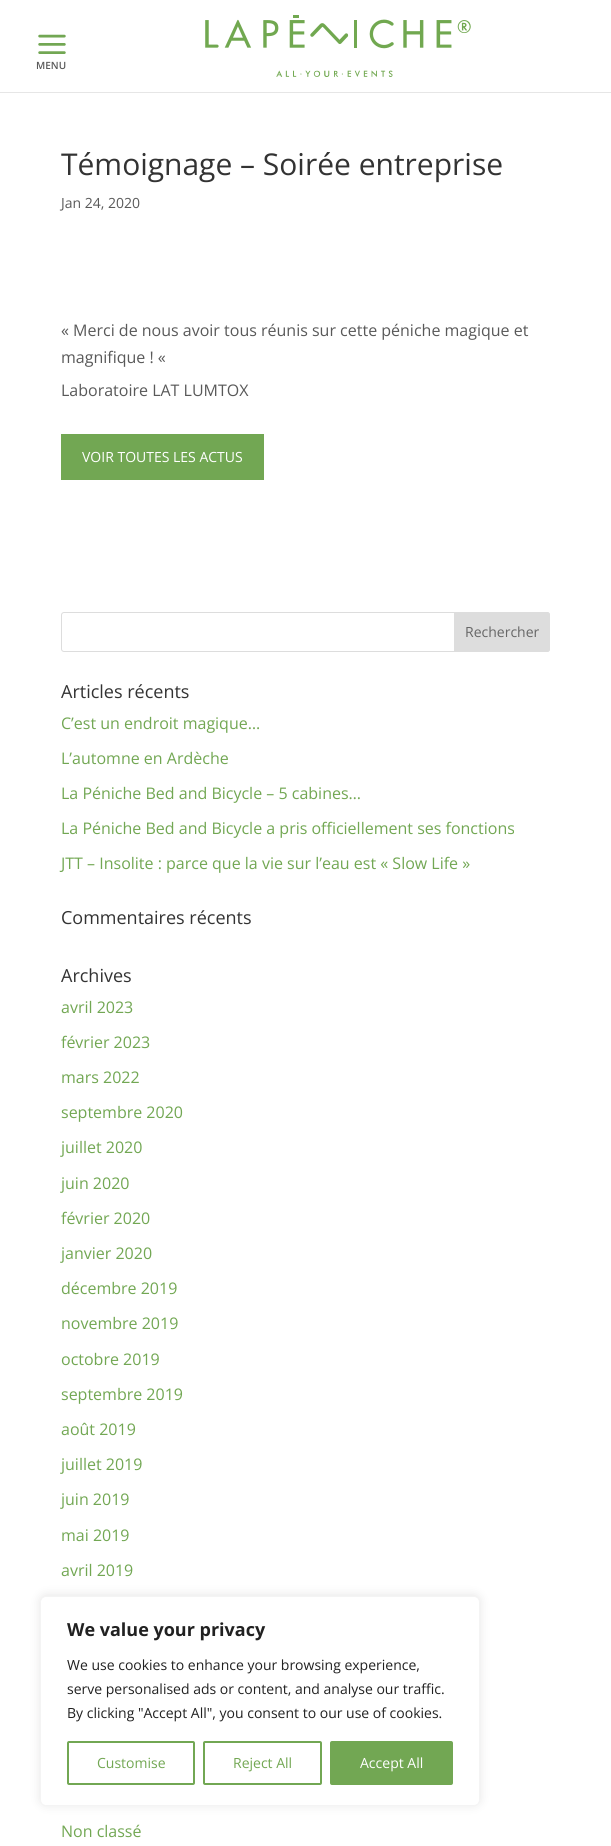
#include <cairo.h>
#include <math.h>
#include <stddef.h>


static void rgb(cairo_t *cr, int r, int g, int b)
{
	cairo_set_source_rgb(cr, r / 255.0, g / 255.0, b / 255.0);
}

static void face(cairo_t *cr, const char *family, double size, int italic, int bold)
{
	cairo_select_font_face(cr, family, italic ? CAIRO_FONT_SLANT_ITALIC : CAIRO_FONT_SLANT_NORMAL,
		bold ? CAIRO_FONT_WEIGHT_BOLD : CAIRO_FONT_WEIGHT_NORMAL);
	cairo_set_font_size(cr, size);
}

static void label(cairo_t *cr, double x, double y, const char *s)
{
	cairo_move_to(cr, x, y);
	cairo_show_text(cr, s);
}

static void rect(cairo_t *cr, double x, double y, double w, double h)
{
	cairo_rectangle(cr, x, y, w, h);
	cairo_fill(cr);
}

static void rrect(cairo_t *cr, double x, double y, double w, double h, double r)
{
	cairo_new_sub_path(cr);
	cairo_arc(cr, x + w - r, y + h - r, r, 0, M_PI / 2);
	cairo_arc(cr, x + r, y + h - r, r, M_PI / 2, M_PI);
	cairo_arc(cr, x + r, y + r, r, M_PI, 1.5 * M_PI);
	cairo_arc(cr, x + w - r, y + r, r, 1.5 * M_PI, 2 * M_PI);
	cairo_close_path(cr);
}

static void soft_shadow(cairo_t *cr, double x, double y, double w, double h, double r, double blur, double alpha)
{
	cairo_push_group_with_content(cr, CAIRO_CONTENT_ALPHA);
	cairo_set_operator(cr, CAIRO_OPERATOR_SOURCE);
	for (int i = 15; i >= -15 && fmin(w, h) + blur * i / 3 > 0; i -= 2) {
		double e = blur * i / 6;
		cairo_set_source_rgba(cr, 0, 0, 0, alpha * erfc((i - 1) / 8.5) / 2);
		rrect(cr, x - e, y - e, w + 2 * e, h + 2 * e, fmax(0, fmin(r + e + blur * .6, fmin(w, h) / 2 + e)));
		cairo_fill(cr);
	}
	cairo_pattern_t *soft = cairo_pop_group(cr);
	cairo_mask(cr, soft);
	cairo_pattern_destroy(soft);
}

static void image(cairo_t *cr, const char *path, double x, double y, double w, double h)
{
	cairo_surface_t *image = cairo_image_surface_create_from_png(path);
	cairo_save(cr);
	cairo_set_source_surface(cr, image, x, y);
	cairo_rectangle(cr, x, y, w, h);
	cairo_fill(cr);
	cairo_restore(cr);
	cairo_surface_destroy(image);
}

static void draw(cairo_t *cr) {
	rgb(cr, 255, 255, 255);
	cairo_paint(cr);
	rgb(cr, 230, 230, 230);
	rect(cr, 0, 92, 611, 1);
	image(cr, "image0.png", 38, 34, 28, 20);
	face(cr, "Open Sans SemiBold", 10, 0, 0);
	rgb(cr, 89, 89, 89);
	label(cr, 36, 69, "MENU");
	image(cr, "image1.png", 205, 15, 266, 62);
	face(cr, "Open Sans", 30, 0, 0);
	rgb(cr, 51, 51, 51);
	label(cr, 61, 175, "Témoignage – Soirée entreprise");
	face(cr, "Open Sans", 14, 0, 0);
	rgb(cr, 89, 89, 89);
	label(cr, 61, 208, "Jan 24, 2020");
	face(cr, "Open Sans", 16, 0, 0);
	label(cr, 61, 336, "« Merci de nous avoir tous réunis sur cette péniche magique et");
	label(cr, 61, 363, "magnifique ! «");
	label(cr, 61, 396, "Laboratoire LAT LUMTOX");
	rgb(cr, 114, 167, 83);
	rect(cr, 61, 434, 203, 46);
	face(cr, "Open Sans", 14, 0, 0);
	rgb(cr, 255, 255, 255);
	label(cr, 82, 462, "VOIR TOUTES LES ACTUS");
	rrect(cr, 61.5, 612.5, 488, 39, 2.5);
	rgb(cr, 221, 221, 221);
	cairo_set_line_width(cr, 1);
	cairo_stroke(cr);
	cairo_new_path(cr);
	cairo_move_to(cr, 454.5, 612.5);
	cairo_line_to(cr, 547, 612.5);
	cairo_curve_to(cr, 548.5, 612.5, 549.5, 613.5, 549.5, 615);
	cairo_line_to(cr, 549.5, 649);
	cairo_curve_to(cr, 549.5, 650.5, 548.5, 651.5, 547, 651.5);
	cairo_line_to(cr, 454.5, 651.5);
	cairo_close_path(cr);
	cairo_fill_preserve(cr);
	cairo_stroke(cr);
	rgb(cr, 102, 102, 102);
	label(cr, 465, 637, "Rechercher");
	face(cr, "Open Sans", 18, 0, 0);
	rgb(cr, 51, 51, 51);
	label(cr, 61, 698, "Articles récents");
	face(cr, "Open Sans", 16, 0, 0);
	rgb(cr, 114, 167, 83);
	label(cr, 61, 729, "C’est un endroit magique…");
	label(cr, 61, 764, "L’automne en Ardèche");
	label(cr, 61, 799, "La Péniche Bed and Bicycle – 5 cabines…");
	label(cr, 61, 834, "La Péniche Bed and Bicycle a pris officiellement ses fonctions");
	label(cr, 61, 869, "JTT – Insolite : parce que la vie sur l’eau est « Slow Life »");
	face(cr, "Open Sans", 18, 0, 0);
	rgb(cr, 51, 51, 51);
	label(cr, 61, 924, "Commentaires récents");
	label(cr, 61, 982, "Archives");
	face(cr, "Open Sans", 16, 0, 0);
	rgb(cr, 114, 167, 83);
	label(cr, 61, 1013, "avril 2023");
	label(cr, 61, 1048, "février 2023");
	label(cr, 61, 1083, "mars 2022");
	label(cr, 61, 1118, "septembre 2020");
	label(cr, 61, 1153, "juillet 2020");
	label(cr, 61, 1189, "juin 2020");
	label(cr, 61, 1224, "février 2020");
	label(cr, 61, 1259, "janvier 2020");
	label(cr, 61, 1294, "décembre 2019");
	label(cr, 61, 1329, "novembre 2019");
	label(cr, 61, 1365, "octobre 2019");
	label(cr, 61, 1400, "septembre 2019");
	label(cr, 61, 1435, "août 2019");
	label(cr, 61, 1470, "juillet 2019");
	label(cr, 61, 1505, "juin 2019");
	label(cr, 61, 1541, "mai 2019");
	label(cr, 61, 1576, "avril 2019");
	label(cr, 61, 1837, "Non classé");
	rgb(cr, 172, 171, 171);
	soft_shadow(cr, 40, 1595, 440, 210, 6, 5, 0.3);
	rgb(cr, 255, 255, 255);
	rrect(cr, 40.5, 1596.5, 439, 209, 5.5);
	cairo_fill_preserve(cr);
	rgb(cr, 244, 244, 244);
	cairo_stroke(cr);
	face(cr, "Open Sans", 18, 0, 1);
	rgb(cr, 33, 33, 33);
	label(cr, 67, 1636, "We value your privacy");
	face(cr, "Open Sans", 14, 0, 0);
	label(cr, 67, 1670, "We use cookies to enhance your browsing experience,");
	label(cr, 67, 1694, "serve personalised ads or content, and analyse our traffic.");
	label(cr, 67, 1718, "By clicking \"Accept All\", you consent to our use of cookies.");
	rrect(cr, 68, 1742, 126, 42, 1);
	rgb(cr, 114, 167, 83);
	cairo_set_line_width(cr, 2);
	cairo_stroke(cr);
	label(cr, 97, 1768, "Customise");
	rrect(cr, 204, 1742, 117, 42, 1);
	cairo_stroke(cr);
	label(cr, 233, 1768, "Reject All");
	rrect(cr, 331, 1742, 121, 42, 1);
	cairo_fill_preserve(cr);
	cairo_stroke(cr);
	rgb(cr, 255, 255, 255);
	label(cr, 360, 1768, "Accept All");
}

int main(void) {
	cairo_surface_t *surface = cairo_image_surface_create(CAIRO_FORMAT_RGB24, 611, 1846);
	cairo_t *cr = cairo_create(surface);
	cairo_font_options_t *options = cairo_font_options_create();
	cairo_font_options_set_hint_metrics(options, CAIRO_HINT_METRICS_OFF);
	cairo_font_options_set_hint_style(options, CAIRO_HINT_STYLE_NONE);
	cairo_set_font_options(cr, options);
	cairo_set_miter_limit(cr, 4);
	draw(cr);
	cairo_surface_write_to_png(surface, "render.png");
	cairo_font_options_destroy(options);
	cairo_destroy(cr);
	cairo_surface_destroy(surface);
	return 0;
}
